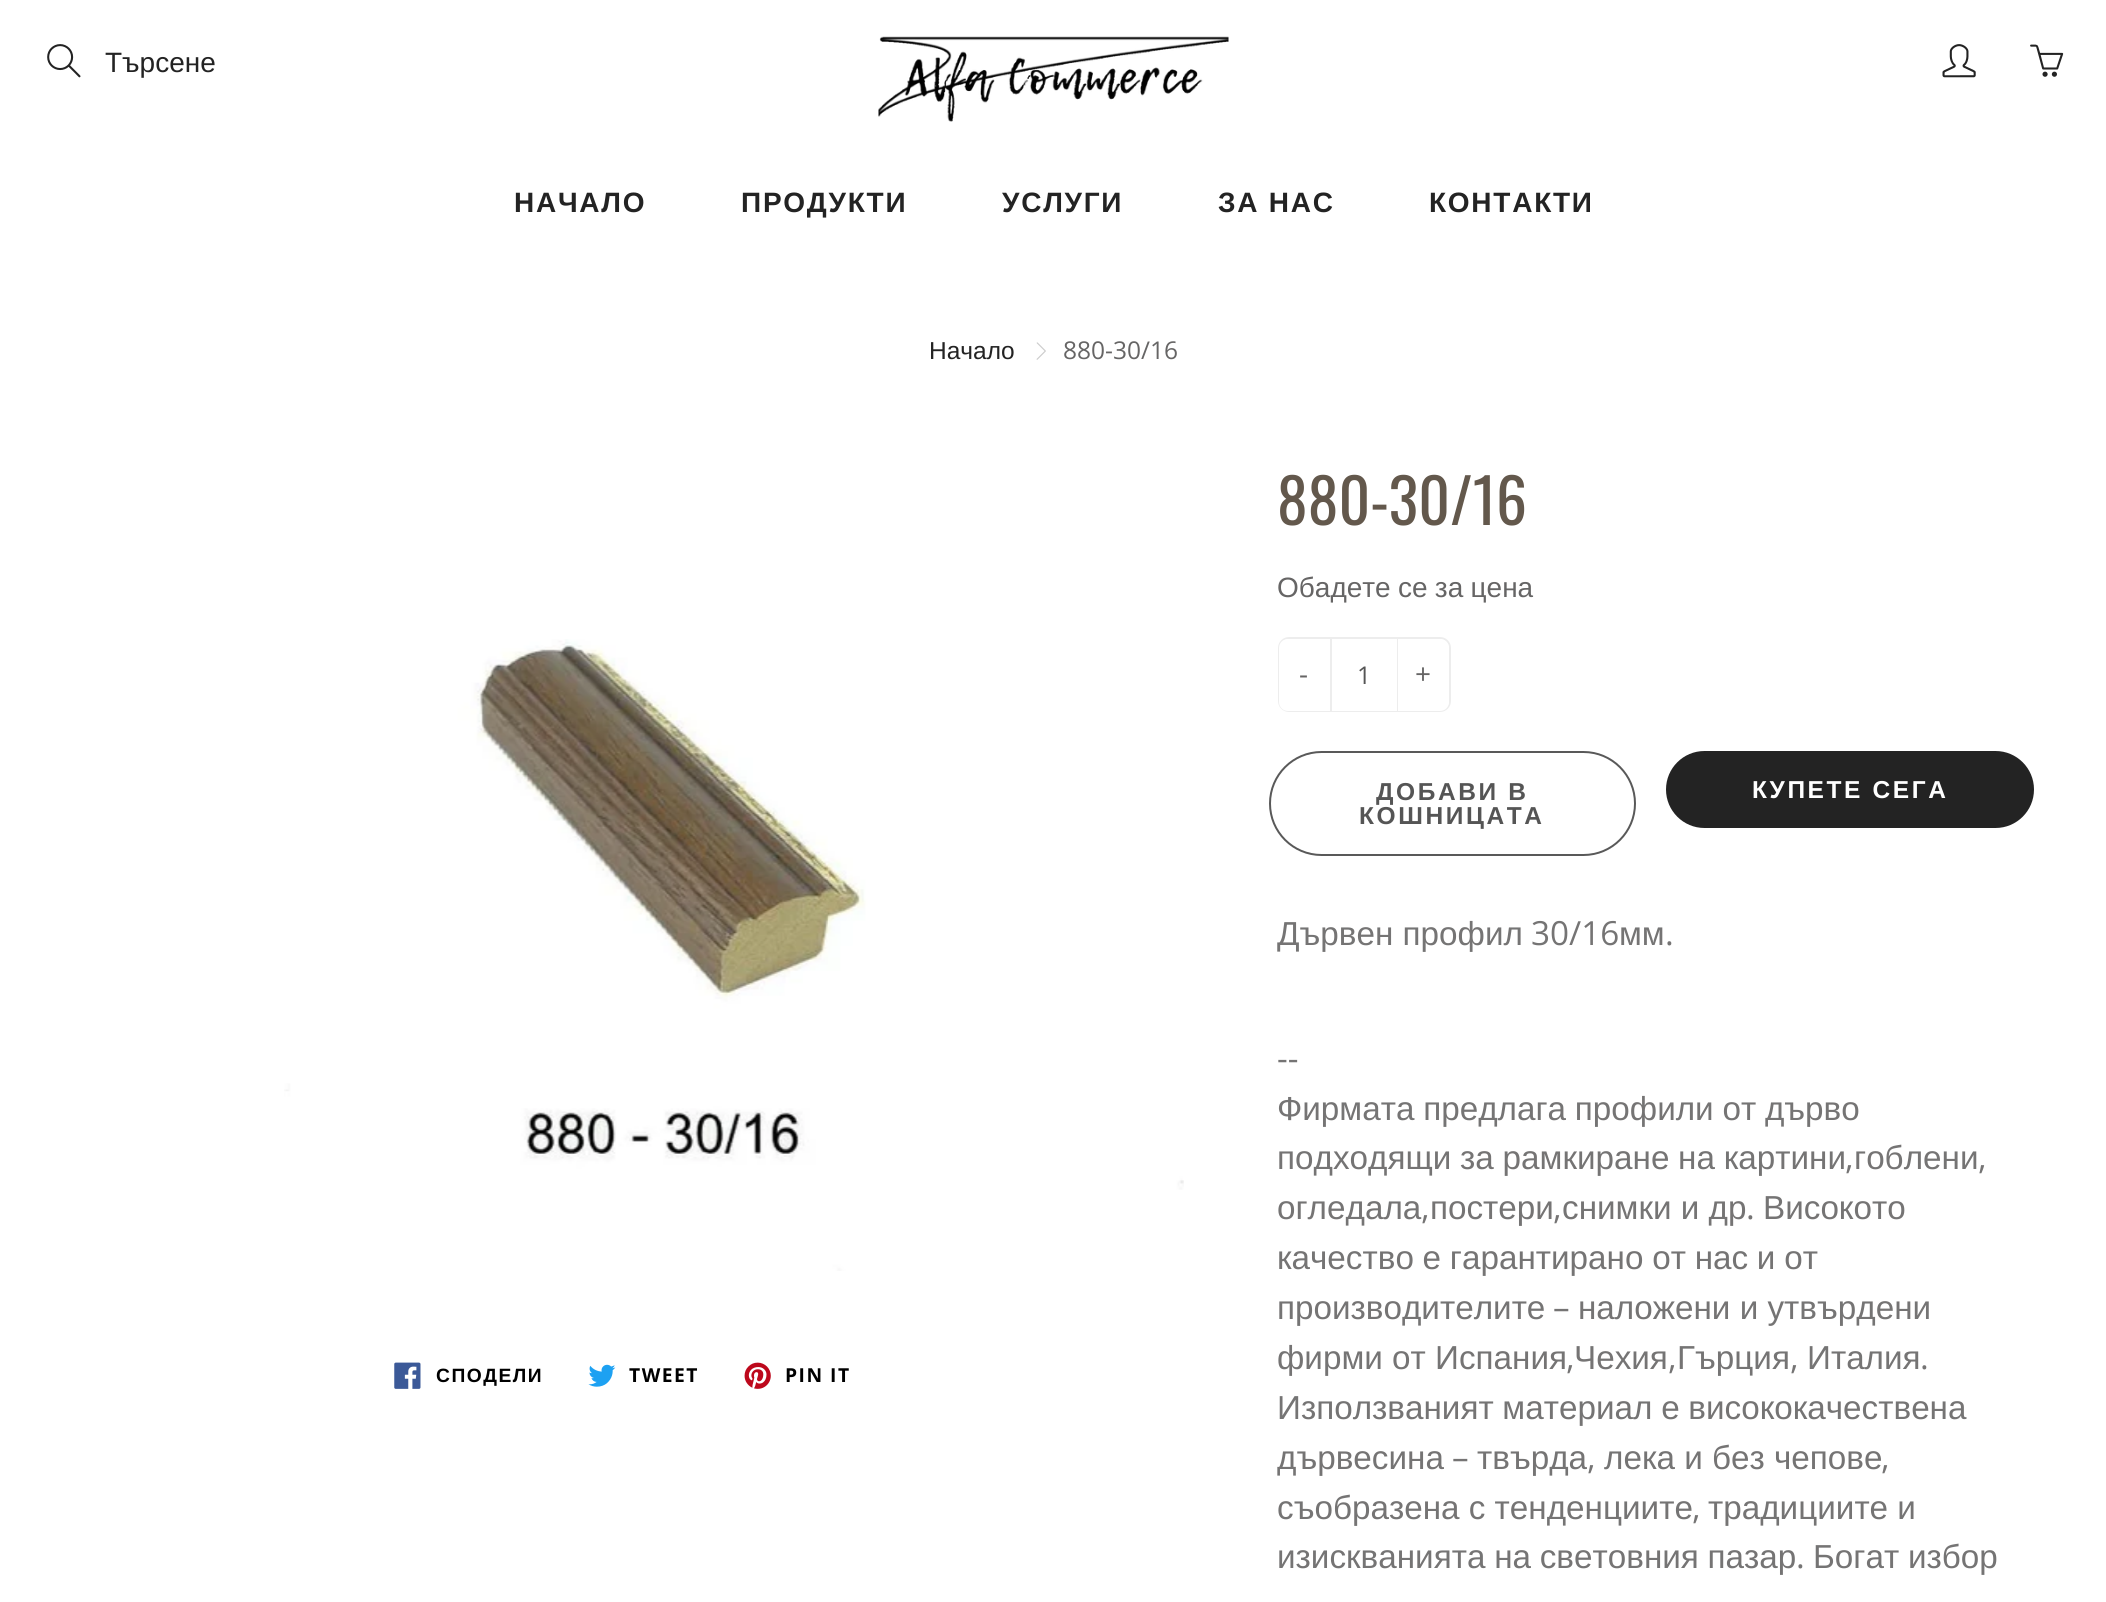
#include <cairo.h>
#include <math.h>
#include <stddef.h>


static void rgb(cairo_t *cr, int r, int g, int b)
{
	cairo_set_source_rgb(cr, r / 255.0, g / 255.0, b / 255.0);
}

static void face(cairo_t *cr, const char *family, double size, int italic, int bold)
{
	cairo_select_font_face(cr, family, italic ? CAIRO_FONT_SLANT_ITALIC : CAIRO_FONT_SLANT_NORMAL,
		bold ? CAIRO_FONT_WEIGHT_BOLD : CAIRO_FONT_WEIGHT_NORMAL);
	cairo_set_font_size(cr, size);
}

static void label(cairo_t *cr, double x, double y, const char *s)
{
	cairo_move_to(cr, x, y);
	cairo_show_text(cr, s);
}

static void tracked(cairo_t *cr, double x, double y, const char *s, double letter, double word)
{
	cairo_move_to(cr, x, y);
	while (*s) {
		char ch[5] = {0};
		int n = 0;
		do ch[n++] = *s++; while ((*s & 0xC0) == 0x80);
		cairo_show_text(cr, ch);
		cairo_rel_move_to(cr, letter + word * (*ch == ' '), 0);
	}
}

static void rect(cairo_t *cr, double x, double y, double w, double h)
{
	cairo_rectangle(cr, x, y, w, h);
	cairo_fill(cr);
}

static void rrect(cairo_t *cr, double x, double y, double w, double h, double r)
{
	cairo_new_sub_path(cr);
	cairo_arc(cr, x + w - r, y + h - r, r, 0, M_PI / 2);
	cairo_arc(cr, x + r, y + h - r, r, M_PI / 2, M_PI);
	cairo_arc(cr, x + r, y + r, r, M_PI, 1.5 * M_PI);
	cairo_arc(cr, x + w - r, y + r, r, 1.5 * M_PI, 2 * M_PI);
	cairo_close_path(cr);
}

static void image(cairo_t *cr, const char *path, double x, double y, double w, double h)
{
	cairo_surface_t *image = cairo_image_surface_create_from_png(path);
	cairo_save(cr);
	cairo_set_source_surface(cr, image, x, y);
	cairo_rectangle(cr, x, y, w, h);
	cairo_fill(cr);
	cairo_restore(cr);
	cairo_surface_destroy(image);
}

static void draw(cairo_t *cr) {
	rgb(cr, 255, 255, 255);
	cairo_paint(cr);
	image(cr, "image0.png", 47, 44, 34, 34);
	face(cr, "Liberation Sans", 28, 0, 0);
	rgb(cr, 35, 35, 35);
	label(cr, 105, 72, "Търсене");
	image(cr, "image1.png", 878, 36, 351, 86);
	image(cr, "image2.png", 1942, 44, 34, 34);
	image(cr, "image3.png", 2030, 44, 34, 33);
	face(cr, "Liberation Sans", 28, 0, 1);
	tracked(cr, 514, 212, "НАЧАЛО", 1.75, 0);
	tracked(cr, 741, 212, "ПРОДУКТИ", 1.75, 0);
	tracked(cr, 1002, 212, "УСЛУГИ", 1.75, 0);
	tracked(cr, 1218, 212, "ЗА НАС", 1.75, 0);
	tracked(cr, 1429, 212, "КОНТАКТИ", 1.75, 0);
	face(cr, "Liberation Sans", 24.5, 0, 0);
	label(cr, 929, 359, "Начало");
	image(cr, "image4.png", 1036, 342, 10, 18);
	face(cr, "Open Sans", 24.5, 0, 0);
	rgb(cr, 102, 101, 101);
	label(cr, 1063, 359, "880-30/16");
	image(cr, "image5.png", 284, 639, 900, 632);
	image(cr, "image6.png", 394, 1362, 27, 27);
	face(cr, "Liberation Sans", 19.25, 0, 1);
	rgb(cr, 0, 0, 0);
	tracked(cr, 436, 1382, "СПОДЕЛИ", 1.5, 0);
	image(cr, "image7.png", 588, 1364, 28, 23);
	face(cr, "Open Sans", 19.25, 0, 1);
	tracked(cr, 629, 1382, "TWEET", 1.5, 0);
	image(cr, "image8.png", 744, 1362, 27, 27);
	tracked(cr, 785, 1382, "PIN IT", 1.5, 0);
	face(cr, "Oswald", 61.5, 0, 0);
	rgb(cr, 99, 88, 76);
	label(cr, 1277, 525, "880-30/16");
	face(cr, "Liberation Sans", 28, 0, 0);
	rgb(cr, 102, 101, 101);
	tracked(cr, 1277, 597, "Обадете се за цена", 0, -0.5);
	rrect(cr, 1279, 638, 171, 73, 10);
	rgb(cr, 237, 237, 237);
	cairo_stroke(cr);
	rgb(cr, 255, 255, 255);
	cairo_new_path(cr);
	cairo_move_to(cr, 1288, 639);
	cairo_line_to(cr, 1330, 639);
	cairo_line_to(cr, 1330, 711);
	cairo_line_to(cr, 1288, 711);
	cairo_curve_to(cr, 1283, 711, 1279, 707, 1279, 702);
	cairo_line_to(cr, 1279, 648);
	cairo_curve_to(cr, 1279, 643, 1283, 639, 1288, 639);
	cairo_close_path(cr);
	cairo_fill(cr);
	face(cr, "Open Sans", 28, 0, 0);
	rgb(cr, 102, 101, 101);
	label(cr, 1299, 684, "-");
	rgb(cr, 255, 255, 255);
	rect(cr, 1332, 710, 65, 1);
	rgb(cr, 237, 237, 237);
	rect(cr, 1397, 639, 1, 72);
	rect(cr, 1330, 639, 2, 72);
	face(cr, "Open Sans", 24.5, 0, 0);
	rgb(cr, 85, 85, 85);
	label(cr, 1357, 684, "1");
	rgb(cr, 255, 255, 255);
	cairo_new_path(cr);
	cairo_move_to(cr, 1398, 639);
	cairo_line_to(cr, 1440, 639);
	cairo_curve_to(cr, 1445, 639, 1449, 643, 1449, 648);
	cairo_line_to(cr, 1449, 702);
	cairo_curve_to(cr, 1449, 707, 1445, 711, 1440, 711);
	cairo_line_to(cr, 1398, 711);
	cairo_close_path(cr);
	cairo_fill(cr);
	face(cr, "Open Sans", 28, 0, 0);
	rgb(cr, 102, 101, 101);
	label(cr, 1415, 684, "+");
	rrect(cr, 1270, 752, 365, 103, 51.5);
	rgb(cr, 89, 89, 89);
	cairo_stroke(cr);
	face(cr, "Liberation Sans", 24.5, 0, 1);
	rgb(cr, 85, 85, 85);
	tracked(cr, 1376, 800, "ДОБАВИ В", 2.6, 0);
	tracked(cr, 1359, 824, "КОШНИЦАТА", 2.6, 0);
	rgb(cr, 35, 35, 35);
	rrect(cr, 1666, 751, 368, 77, 38.5);
	cairo_fill(cr);
	rgb(cr, 255, 255, 255);
	tracked(cr, 1752, 798, "КУПЕТЕ СЕГА", 2.6, 0);
	face(cr, "Liberation Sans", 33.25, 0, 0);
	rgb(cr, 117, 116, 116);
	label(cr, 1277, 945, "Дървен профил");
	face(cr, "Open Sans", 33.25, 0, 0);
	label(cr, 1531, 945, "30/16");
	face(cr, "Liberation Sans", 33.25, 0, 0);
	label(cr, 1619, 945, "мм");
	face(cr, "Open Sans", 33.25, 0, 0);
	label(cr, 1665, 945, ".");
	label(cr, 1277, 1070, "--");
	face(cr, "Liberation Sans", 33.25, 0, 0);
	tracked(cr, 1277, 1120, "Фирмата предлага профили от дърво", 0, -0.5);
	tracked(cr, 1277, 1169, "подходящи за рамкиране на картини", 0, -0.5);
	face(cr, "Open Sans", 33.25, 0, 0);
	label(cr, 1845, 1169, ",");
	face(cr, "Liberation Sans", 33.25, 0, 0);
	label(cr, 1854, 1169, "гоблени");
	face(cr, "Open Sans", 33.25, 0, 0);
	label(cr, 1978, 1169, ",");
	face(cr, "Liberation Sans", 33.25, 0, 0);
	label(cr, 1277, 1219, "огледала");
	face(cr, "Open Sans", 33.25, 0, 0);
	label(cr, 1421, 1219, ",");
	face(cr, "Liberation Sans", 33.25, 0, 0);
	label(cr, 1430, 1219, "постери");
	face(cr, "Open Sans", 33.25, 0, 0);
	label(cr, 1553, 1219, ",");
	face(cr, "Liberation Sans", 33.25, 0, 0);
	label(cr, 1562, 1219, "снимки и др");
	face(cr, "Open Sans", 33.25, 0, 0);
	label(cr, 1746, 1219, ".");
	face(cr, "Liberation Sans", 33.25, 0, 0);
	label(cr, 1763, 1219, "Високото");
	tracked(cr, 1277, 1269, "качество е гарантирано от нас и от", 0, -0.5);
	label(cr, 1277, 1319, "производителите");
	face(cr, "Open Sans", 33.25, 0, 0);
	label(cr, 1553, 1319, "–");
	face(cr, "Liberation Sans", 33.25, 0, 0);
	label(cr, 1578, 1319, "наложени и утвърдени");
	label(cr, 1277, 1369, "фирми от Испания");
	face(cr, "Open Sans", 33.25, 0, 0);
	label(cr, 1566, 1369, ",");
	face(cr, "Liberation Sans", 33.25, 0, 0);
	label(cr, 1574, 1369, "Чехия");
	face(cr, "Open Sans", 33.25, 0, 0);
	label(cr, 1668, 1369, ",");
	face(cr, "Liberation Sans", 33.25, 0, 0);
	label(cr, 1677, 1369, "Гърция");
	face(cr, "Open Sans", 33.25, 0, 0);
	label(cr, 1790, 1369, ",");
	face(cr, "Liberation Sans", 33.25, 0, 0);
	label(cr, 1807, 1369, "Италия");
	face(cr, "Open Sans", 33.25, 0, 0);
	label(cr, 1920, 1369, ".");
	face(cr, "Liberation Sans", 33.25, 0, 0);
	tracked(cr, 1277, 1419, "Използваният материал е висококачествена", 0, -0.5);
	label(cr, 1277, 1469, "дървесина");
	face(cr, "Open Sans", 33.25, 0, 0);
	label(cr, 1452, 1469, "–");
	face(cr, "Liberation Sans", 33.25, 0, 0);
	label(cr, 1477, 1469, "твърда");
	label(cr, 1604, 1469, "лека и без чепове");
	face(cr, "Open Sans", 33.25, 0, 0);
	label(cr, 1587, 1469, ",");
	label(cr, 1881, 1469, ",");
	face(cr, "Liberation Sans", 33.25, 0, 0);
	label(cr, 1277, 1519, "съобразена с тенденциите");
	face(cr, "Open Sans", 33.25, 0, 0);
	label(cr, 1692, 1519, ",");
	face(cr, "Liberation Sans", 33.25, 0, 0);
	label(cr, 1708, 1519, "традициите и");
	tracked(cr, 1277, 1568, "изискванията на световния пазар", 0, -0.5);
	face(cr, "Open Sans", 33.25, 0, 0);
	label(cr, 1796, 1568, ".");
	face(cr, "Liberation Sans", 33.25, 0, 0);
	tracked(cr, 1813, 1568, "Богат избор", 0, -0.5);
}

int main(void) {
	cairo_surface_t *surface = cairo_image_surface_create(CAIRO_FORMAT_RGB24, 2106, 1602);
	cairo_t *cr = cairo_create(surface);
	cairo_font_options_t *options = cairo_font_options_create();
	cairo_font_options_set_hint_metrics(options, CAIRO_HINT_METRICS_OFF);
	cairo_font_options_set_hint_style(options, CAIRO_HINT_STYLE_NONE);
	cairo_set_font_options(cr, options);
	cairo_set_miter_limit(cr, 4);
	draw(cr);
	cairo_surface_write_to_png(surface, "render.png");
	cairo_font_options_destroy(options);
	cairo_destroy(cr);
	cairo_surface_destroy(surface);
	return 0;
}
